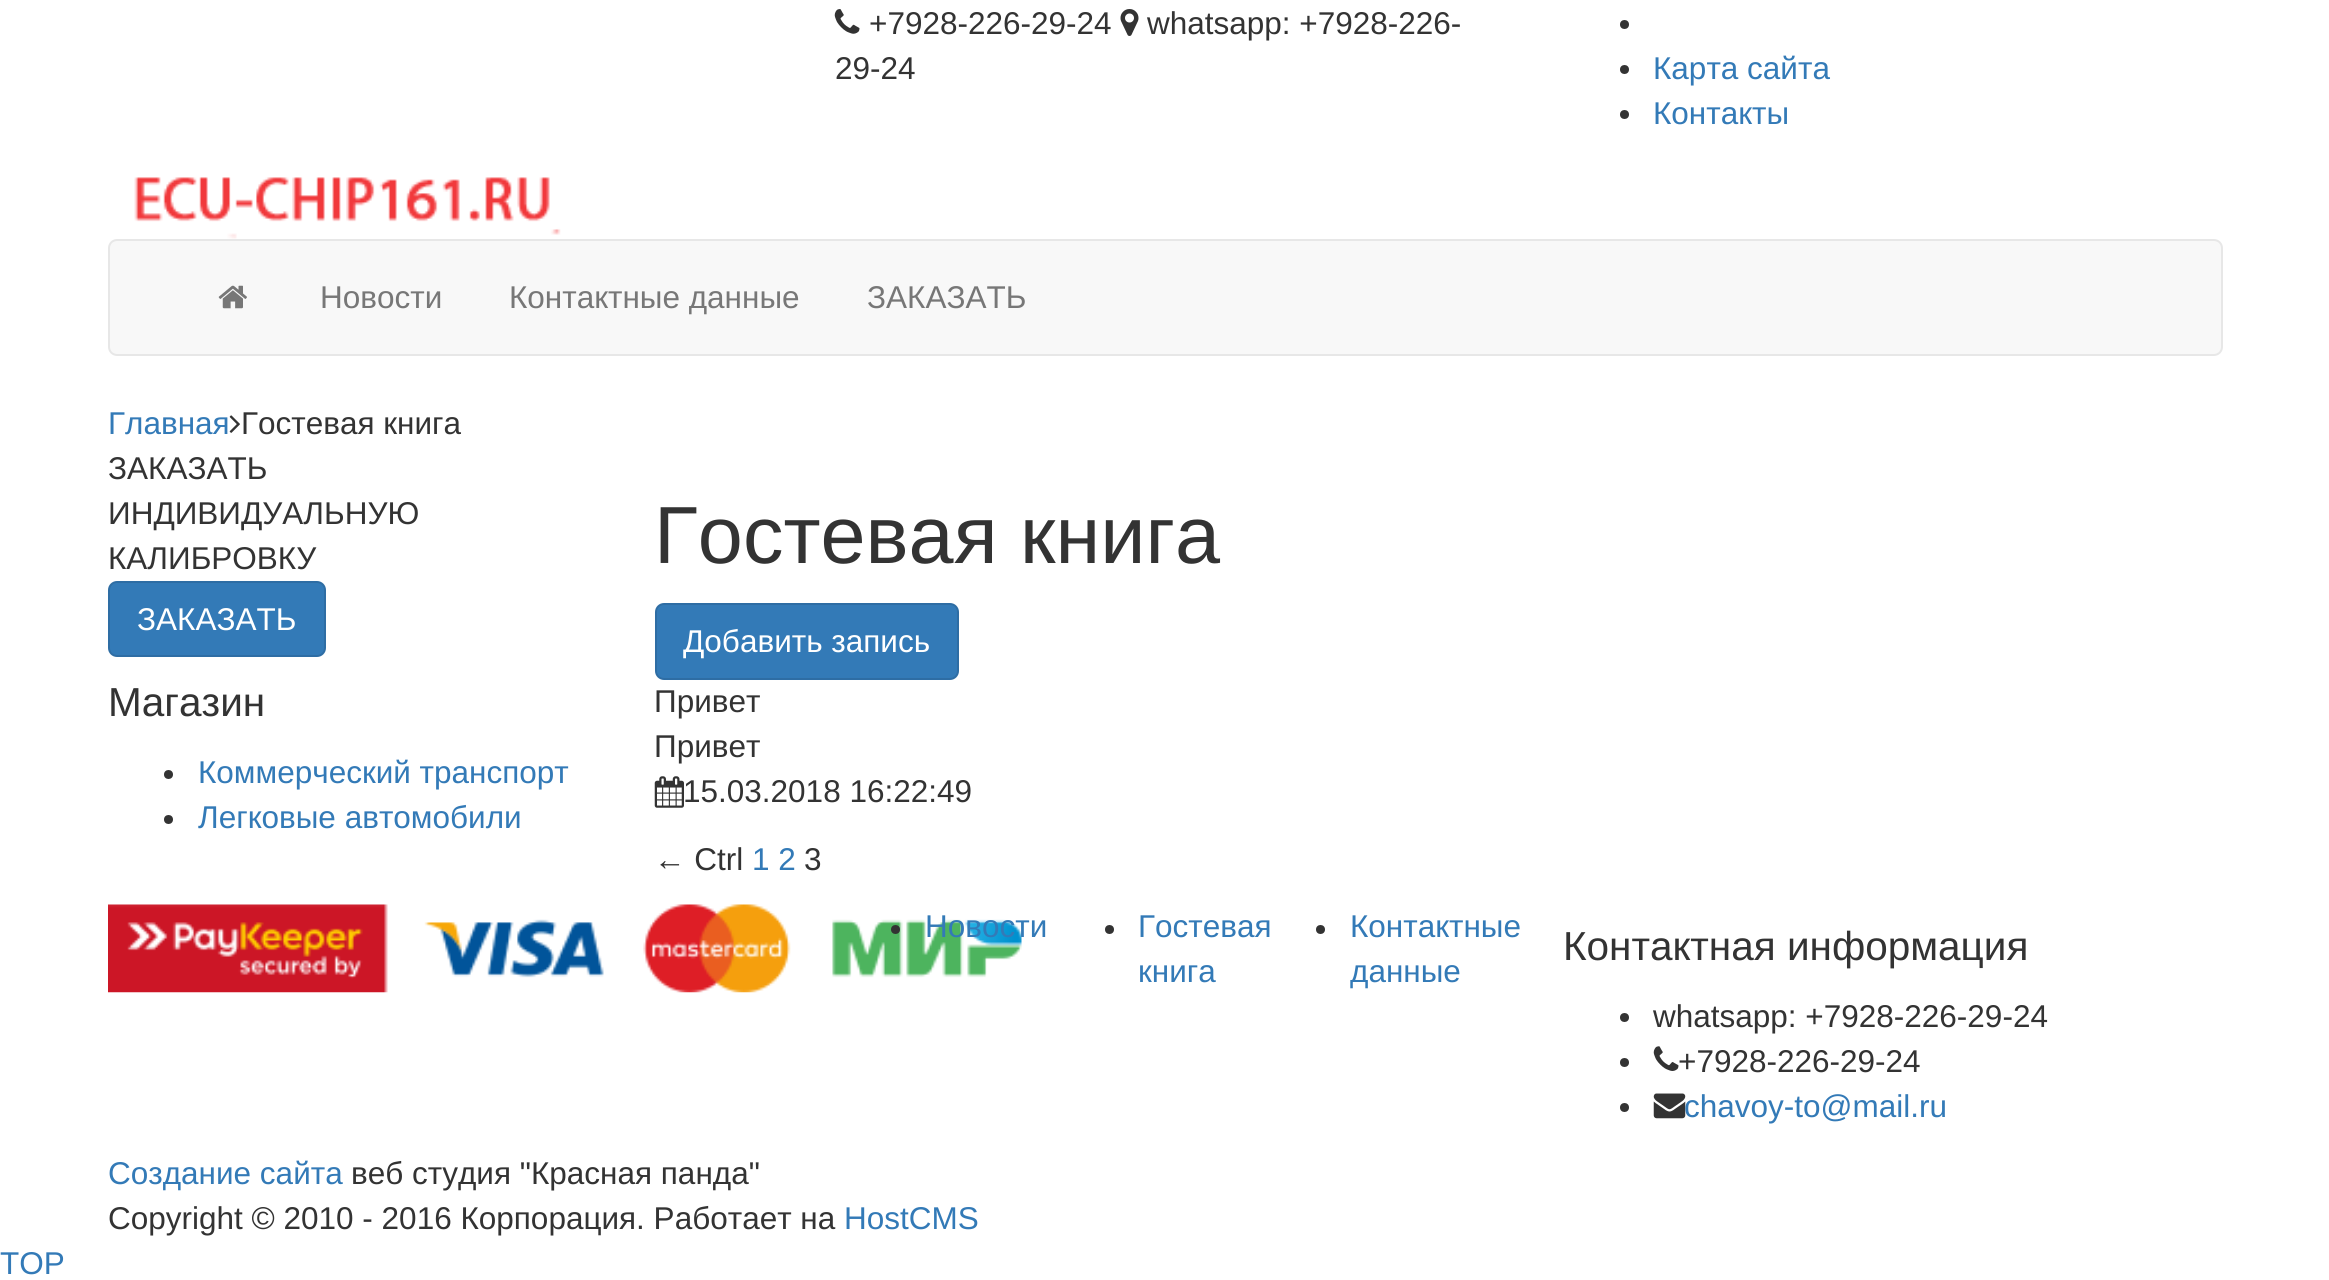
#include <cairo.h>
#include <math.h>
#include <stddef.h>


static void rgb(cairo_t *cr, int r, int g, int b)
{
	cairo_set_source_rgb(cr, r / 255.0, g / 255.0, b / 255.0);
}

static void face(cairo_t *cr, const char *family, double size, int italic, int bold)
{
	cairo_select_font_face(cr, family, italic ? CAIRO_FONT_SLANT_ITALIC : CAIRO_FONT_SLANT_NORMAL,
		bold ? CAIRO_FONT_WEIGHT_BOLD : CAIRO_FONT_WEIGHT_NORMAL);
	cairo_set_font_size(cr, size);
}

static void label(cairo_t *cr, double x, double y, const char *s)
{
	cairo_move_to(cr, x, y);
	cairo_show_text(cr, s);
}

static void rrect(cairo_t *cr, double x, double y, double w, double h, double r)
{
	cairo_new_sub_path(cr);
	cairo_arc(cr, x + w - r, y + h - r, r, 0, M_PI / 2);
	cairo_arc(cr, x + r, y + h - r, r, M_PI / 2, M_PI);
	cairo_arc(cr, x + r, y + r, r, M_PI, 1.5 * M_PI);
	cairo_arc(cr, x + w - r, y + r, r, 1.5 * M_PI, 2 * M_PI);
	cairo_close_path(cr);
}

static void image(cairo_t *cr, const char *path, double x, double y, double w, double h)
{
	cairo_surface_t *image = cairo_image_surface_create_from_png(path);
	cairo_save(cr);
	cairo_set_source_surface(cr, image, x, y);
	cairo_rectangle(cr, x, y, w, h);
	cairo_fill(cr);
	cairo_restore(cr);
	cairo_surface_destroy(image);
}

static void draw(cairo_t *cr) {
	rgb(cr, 255, 255, 255);
	cairo_paint(cr);
	image(cr, "image0.png", 834, 9, 26, 25);
	face(cr, "Liberation Sans", 31.5, 0, 0);
	rgb(cr, 51, 51, 51);
	label(cr, 869, 34, "+7928-226-29-24");
	image(cr, "image1.png", 1120, 9, 19, 27);
	label(cr, 1147, 34, "whatsapp: +7928-226-");
	label(cr, 835, 79, "29-24");
	cairo_new_path(cr);
	cairo_arc(cr, 1624.5, 24.5, 4.5, 0, 2 * M_PI);
	cairo_fill(cr);
	cairo_arc(cr, 1624.5, 69.5, 4.5, 0, 2 * M_PI);
	cairo_fill(cr);
	rgb(cr, 51, 122, 183);
	label(cr, 1653, 79, "Карта сайта");
	rgb(cr, 51, 51, 51);
	cairo_new_path(cr);
	cairo_arc(cr, 1624.5, 114.5, 4.5, 0, 2 * M_PI);
	cairo_fill(cr);
	rgb(cr, 51, 122, 183);
	label(cr, 1653, 124, "Контакты");
	image(cr, "image2.png", 134, 177, 427, 62);
	rgb(cr, 248, 248, 248);
	rrect(cr, 109, 240, 2113, 115, 8);
	cairo_fill_preserve(cr);
	rgb(cr, 231, 231, 231);
	cairo_stroke(cr);
	image(cr, "image3.png", 218, 285, 29, 24);
	rgb(cr, 119, 119, 119);
	label(cr, 320, 308, "Новости");
	label(cr, 509, 308, "Контактные данные");
	label(cr, 867, 308, "ЗАКАЗАТЬ");
	rgb(cr, 51, 122, 183);
	label(cr, 108, 434, "Главная");
	image(cr, "image4.png", 229, 415, 11, 18);
	rgb(cr, 51, 51, 51);
	label(cr, 241, 434, "Гостевая книга");
	label(cr, 108, 479, "ЗАКАЗАТЬ");
	label(cr, 108, 524, "ИНДИВИДУАЛЬНУЮ");
	label(cr, 108, 569, "КАЛИБРОВКУ");
	rgb(cr, 51, 122, 183);
	rrect(cr, 109, 582, 216, 74, 8);
	cairo_fill_preserve(cr);
	rgb(cr, 46, 109, 164);
	cairo_stroke(cr);
	rgb(cr, 255, 255, 255);
	label(cr, 137, 630, "ЗАКАЗАТЬ");
	face(cr, "Liberation Sans", 40.5, 0, 0);
	rgb(cr, 51, 51, 51);
	label(cr, 108, 716, "Магазин");
	cairo_new_path(cr);
	cairo_arc(cr, 168.5, 774.5, 4.5, 0, 2 * M_PI);
	cairo_fill(cr);
	face(cr, "Liberation Sans", 31.5, 0, 0);
	rgb(cr, 51, 122, 183);
	label(cr, 198, 783, "Коммерческий транспорт");
	rgb(cr, 51, 51, 51);
	cairo_new_path(cr);
	cairo_arc(cr, 168.5, 819.5, 4.5, 0, 2 * M_PI);
	cairo_fill(cr);
	rgb(cr, 51, 122, 183);
	label(cr, 198, 828, "Легковые автомобили");
	face(cr, "Liberation Sans", 81, 0, 0);
	rgb(cr, 51, 51, 51);
	label(cr, 654, 563, "Гостевая книга");
	rgb(cr, 51, 122, 183);
	rrect(cr, 656, 604, 302, 75, 8);
	cairo_fill_preserve(cr);
	rgb(cr, 46, 109, 164);
	cairo_stroke(cr);
	face(cr, "Liberation Sans", 31.5, 0, 0);
	rgb(cr, 255, 255, 255);
	label(cr, 683, 652, "Добавить запись");
	rgb(cr, 51, 51, 51);
	label(cr, 654, 712, "Привет");
	label(cr, 654, 757, "Привет");
	image(cr, "image5.png", 654, 776, 30, 32);
	label(cr, 683, 802, "15.03.2018 16:22:49");
	label(cr, 654, 870, "← Ctrl");
	rgb(cr, 51, 122, 183);
	label(cr, 752, 870, "1 2");
	rgb(cr, 51, 51, 51);
	label(cr, 804, 870, "3");
	image(cr, "image6.png", 108, 904, 914, 89);
	cairo_arc(cr, 895.5, 929.5, 4.5, 0, 2 * M_PI);
	cairo_fill(cr);
	rgb(cr, 51, 122, 183);
	label(cr, 925, 937, "Новости");
	rgb(cr, 51, 51, 51);
	cairo_new_path(cr);
	cairo_arc(cr, 1109.5, 929.5, 4.5, 0, 2 * M_PI);
	cairo_fill(cr);
	rgb(cr, 51, 122, 183);
	label(cr, 1138, 937, "Гостевая");
	label(cr, 1138, 982, "книга");
	rgb(cr, 51, 51, 51);
	cairo_new_path(cr);
	cairo_arc(cr, 1320.5, 929.5, 4.5, 0, 2 * M_PI);
	cairo_fill(cr);
	rgb(cr, 51, 122, 183);
	label(cr, 1350, 937, "Контактные");
	label(cr, 1350, 982, "данные");
	face(cr, "Liberation Sans", 40.5, 0, 0);
	rgb(cr, 51, 51, 51);
	label(cr, 1563, 960, "Контактная информация");
	cairo_new_path(cr);
	cairo_arc(cr, 1624.5, 1017.5, 4.5, 0, 2 * M_PI);
	cairo_fill(cr);
	face(cr, "Liberation Sans", 31.5, 0, 0);
	label(cr, 1653, 1027, "whatsapp: +7928-226-29-24");
	cairo_new_path(cr);
	cairo_arc(cr, 1624.5, 1062.5, 4.5, 0, 2 * M_PI);
	cairo_fill(cr);
	image(cr, "image7.png", 1653, 1046, 26, 25);
	label(cr, 1678, 1072, "+7928-226-29-24");
	cairo_new_path(cr);
	cairo_arc(cr, 1624.5, 1107.5, 4.5, 0, 2 * M_PI);
	cairo_fill(cr);
	image(cr, "image8.png", 1653, 1093, 33, 26);
	rgb(cr, 51, 122, 183);
	label(cr, 1684, 1117, "chavoy-to@mail.ru");
	label(cr, 108, 1184, "Создание сайта");
	rgb(cr, 51, 51, 51);
	label(cr, 351, 1184, "веб студия \"Красная панда\"");
	label(cr, 108, 1229, "Copyright © 2010 - 2016 Корпорация. Работает на");
	rgb(cr, 51, 122, 183);
	label(cr, 844, 1229, "HostCMS");
	label(cr, 0, 1274, "TOP");
}

int main(void) {
	cairo_surface_t *surface = cairo_image_surface_create(CAIRO_FORMAT_RGB24, 2329, 1280);
	cairo_t *cr = cairo_create(surface);
	cairo_font_options_t *options = cairo_font_options_create();
	cairo_font_options_set_hint_metrics(options, CAIRO_HINT_METRICS_OFF);
	cairo_font_options_set_hint_style(options, CAIRO_HINT_STYLE_NONE);
	cairo_set_font_options(cr, options);
	cairo_set_miter_limit(cr, 4);
	draw(cr);
	cairo_surface_write_to_png(surface, "render.png");
	cairo_font_options_destroy(options);
	cairo_destroy(cr);
	cairo_surface_destroy(surface);
	return 0;
}
